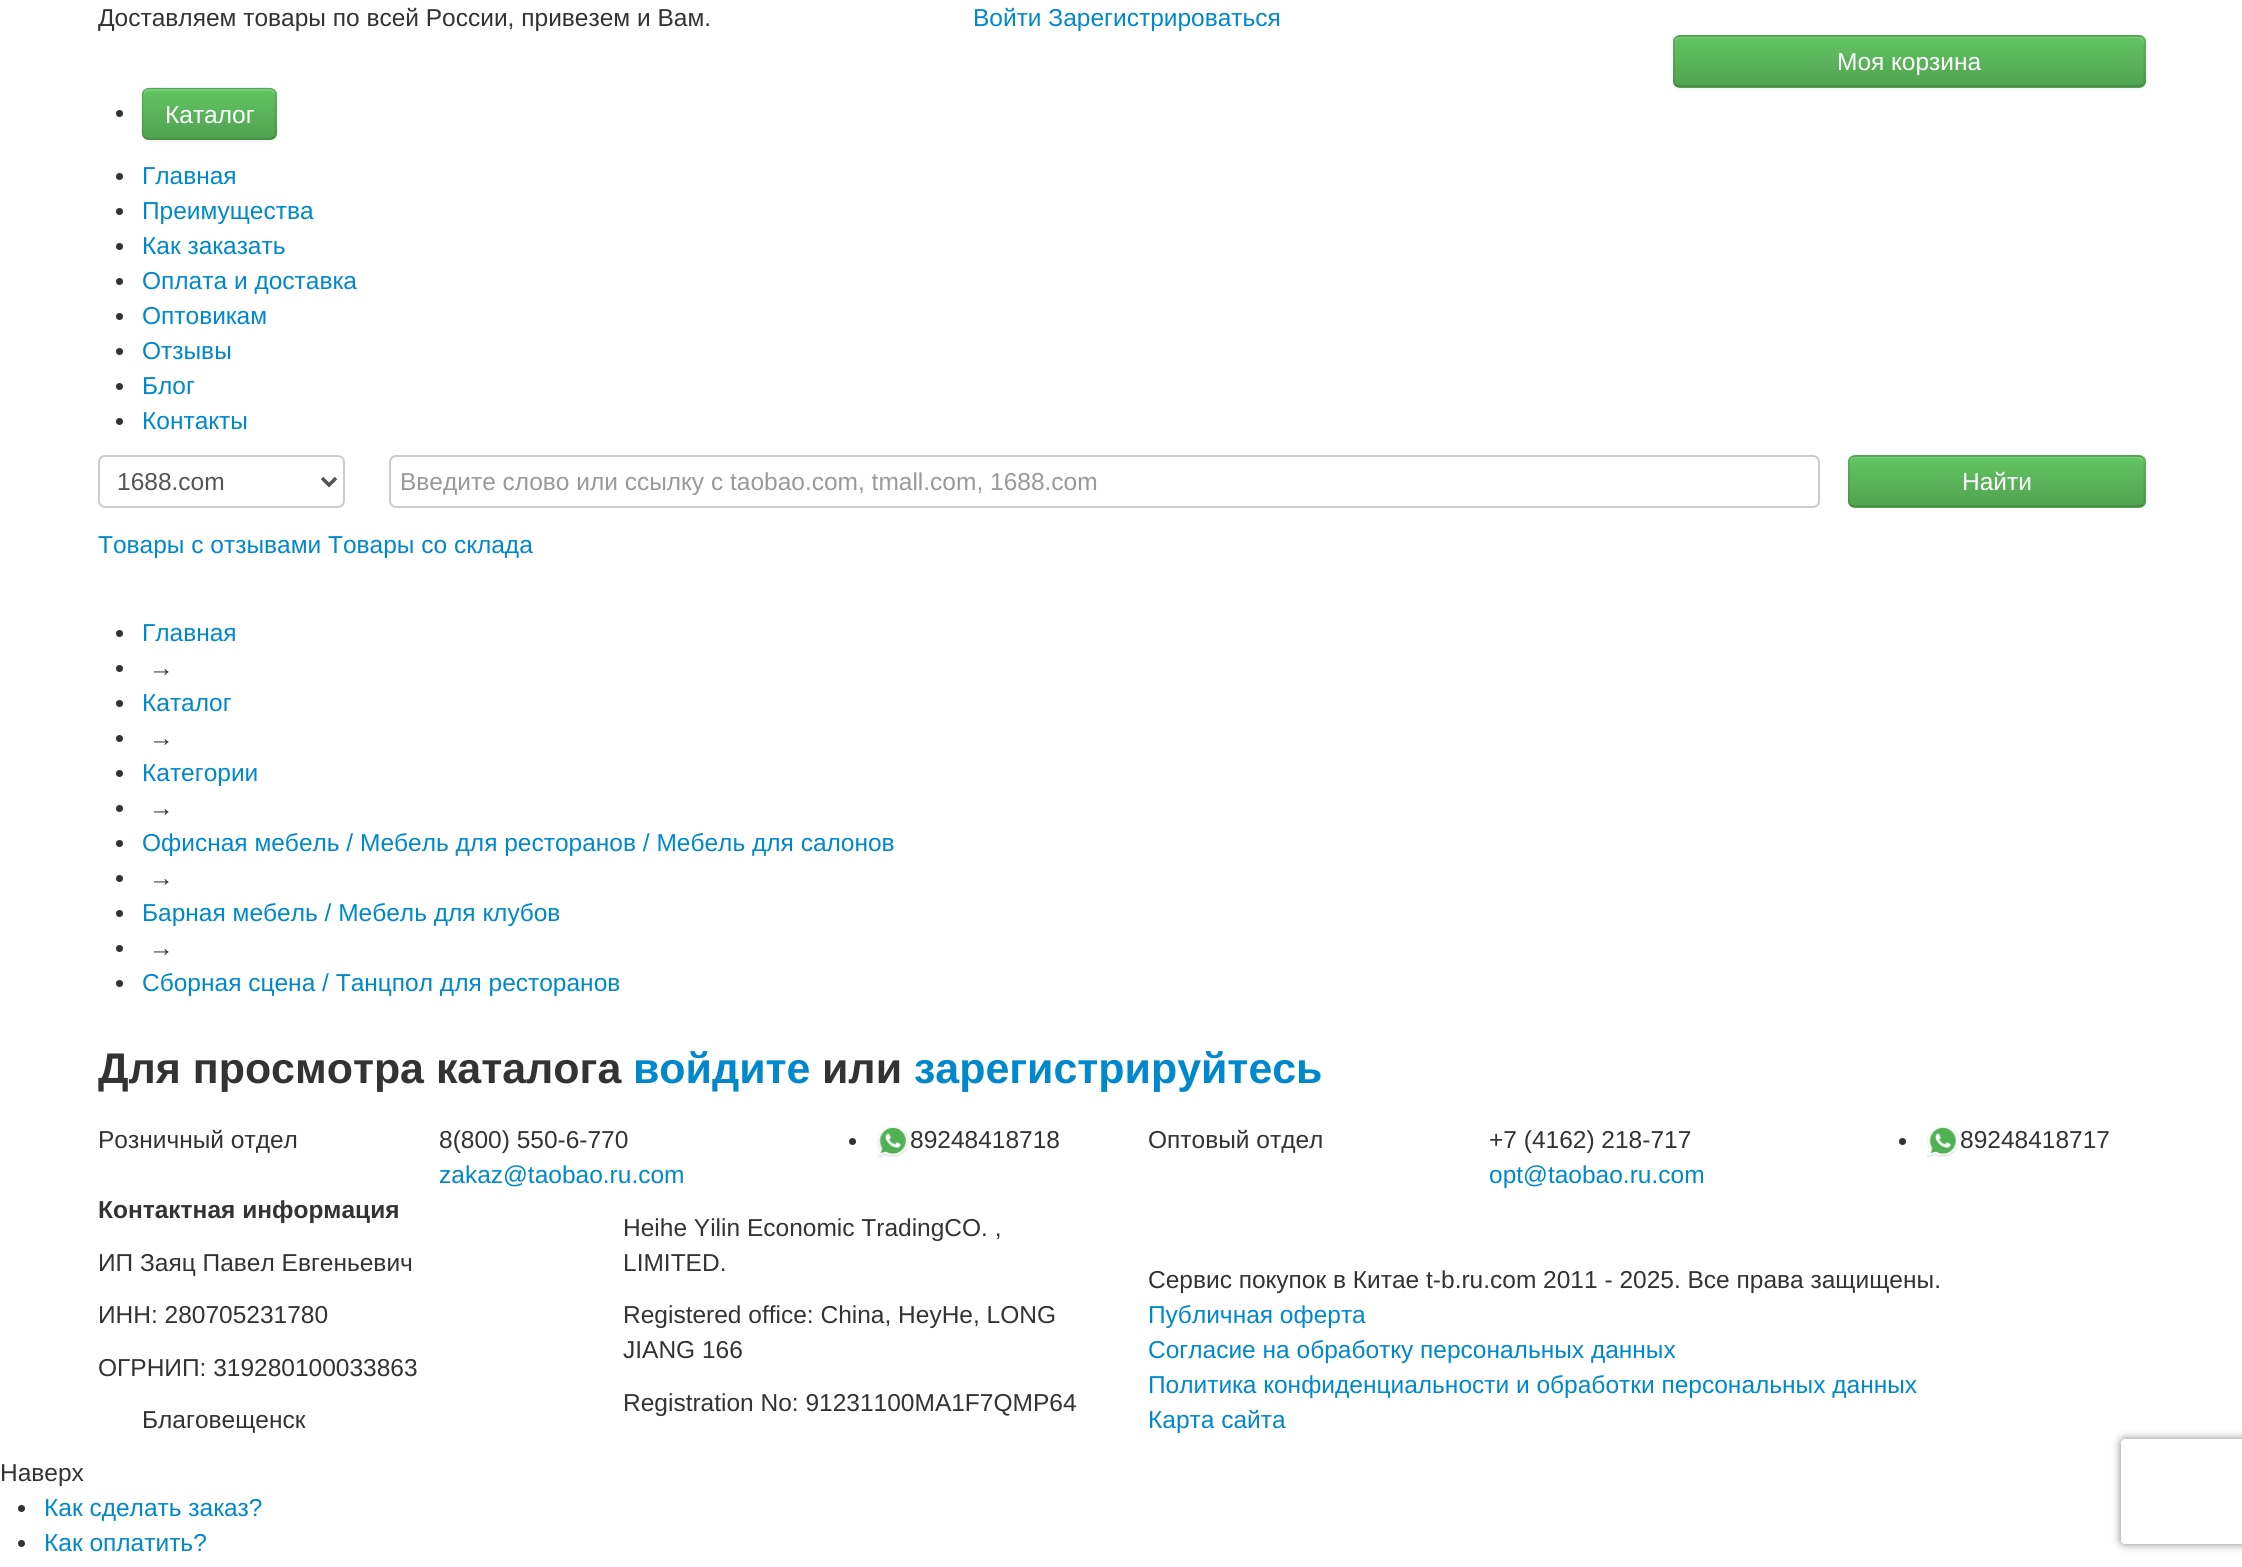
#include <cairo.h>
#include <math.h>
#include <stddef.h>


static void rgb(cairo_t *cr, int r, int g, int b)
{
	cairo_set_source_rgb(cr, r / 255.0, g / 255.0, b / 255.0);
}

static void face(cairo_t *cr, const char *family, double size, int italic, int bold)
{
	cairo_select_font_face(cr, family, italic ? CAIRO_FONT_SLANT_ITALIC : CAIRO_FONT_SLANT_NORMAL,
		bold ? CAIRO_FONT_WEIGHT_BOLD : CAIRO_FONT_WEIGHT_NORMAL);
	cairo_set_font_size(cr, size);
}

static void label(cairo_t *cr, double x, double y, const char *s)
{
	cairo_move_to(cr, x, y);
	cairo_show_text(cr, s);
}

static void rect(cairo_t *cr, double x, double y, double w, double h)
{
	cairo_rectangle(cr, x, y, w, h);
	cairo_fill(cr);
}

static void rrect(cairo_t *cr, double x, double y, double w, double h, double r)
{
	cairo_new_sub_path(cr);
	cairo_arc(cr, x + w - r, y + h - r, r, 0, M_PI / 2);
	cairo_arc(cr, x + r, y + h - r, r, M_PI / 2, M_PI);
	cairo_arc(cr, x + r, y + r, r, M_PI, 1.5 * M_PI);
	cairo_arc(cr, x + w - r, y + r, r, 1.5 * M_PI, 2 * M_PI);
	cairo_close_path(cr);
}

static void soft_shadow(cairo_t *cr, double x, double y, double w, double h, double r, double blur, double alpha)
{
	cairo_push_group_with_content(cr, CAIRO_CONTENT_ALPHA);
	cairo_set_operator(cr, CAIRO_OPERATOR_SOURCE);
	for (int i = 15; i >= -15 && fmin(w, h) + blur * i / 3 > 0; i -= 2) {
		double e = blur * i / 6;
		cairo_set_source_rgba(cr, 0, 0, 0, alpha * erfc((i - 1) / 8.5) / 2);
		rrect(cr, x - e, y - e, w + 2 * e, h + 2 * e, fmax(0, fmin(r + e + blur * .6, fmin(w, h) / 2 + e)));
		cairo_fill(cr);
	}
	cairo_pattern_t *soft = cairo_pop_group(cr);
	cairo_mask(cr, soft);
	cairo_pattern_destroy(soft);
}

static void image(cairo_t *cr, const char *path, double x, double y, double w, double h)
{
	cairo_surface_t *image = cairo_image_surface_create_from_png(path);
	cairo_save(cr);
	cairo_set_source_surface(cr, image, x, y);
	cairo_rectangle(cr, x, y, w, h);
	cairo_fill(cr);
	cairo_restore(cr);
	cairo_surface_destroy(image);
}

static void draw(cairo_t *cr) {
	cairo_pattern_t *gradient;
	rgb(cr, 255, 255, 255);
	cairo_paint(cr);
	face(cr, "Liberation Sans", 24.5, 0, 0);
	rgb(cr, 51, 51, 51);
	label(cr, 98, 26, "Доставляем товары по всей России, привезем и Вам.");
	rgb(cr, 0, 136, 204);
	label(cr, 973, 26, "Войти Зарегистрироваться");
	rgb(cr, 0, 0, 0);
	soft_shadow(cr, 1673, 37, 473, 52, 7, 2, 0.05);
	rgb(cr, 91, 183, 91);
	rrect(cr, 1673, 35, 473, 53, 7);
	cairo_fill(cr);
	cairo_save(cr);
	rrect(cr, 1673, 35, 473, 53, 7);
	cairo_clip(cr);
	gradient = cairo_pattern_create_linear(1909, 37, 1909, 86);
	cairo_pattern_add_color_stop_rgba(gradient, 0, 0.384, 0.769, 0.384, 1);
	cairo_pattern_add_color_stop_rgba(gradient, 1, 0.318, 0.639, 0.318, 1);
	cairo_set_source(cr, gradient);
	cairo_pattern_destroy(gradient);
	rect(cr, 1673, 37, 473, 49);
	cairo_restore(cr);
	cairo_set_source_rgba(cr, 1, 1, 1, 0.2);
	cairo_new_path(cr);
	cairo_move_to(cr, 1680, 38);
	cairo_line_to(cr, 2138, 38);
	cairo_curve_to(cr, 2141, 38, 2144, 41, 2144, 44);
	cairo_line_to(cr, 2144, 42);
	cairo_curve_to(cr, 2144, 39, 2142, 37, 2139, 37);
	cairo_line_to(cr, 1680, 37);
	cairo_curve_to(cr, 1677, 37, 1675, 39, 1675, 42);
	cairo_line_to(cr, 1675, 44);
	cairo_curve_to(cr, 1675, 41, 1677, 38, 1680, 38);
	cairo_close_path(cr);
	cairo_fill(cr);
	cairo_new_path(cr);
	cairo_move_to(cr, 2143, 85);
	cairo_curve_to(cr, 2141.5, 86, 2140, 86.5, 2138.5, 86.5);
	cairo_line_to(cr, 1680, 86.5);
	cairo_curve_to(cr, 1678.5, 86.5, 1677, 86, 1675.5, 85);
	cairo_set_source_rgba(cr, 0, 0, 0, 0.25);
	cairo_set_line_width(cr, 1.8);
	cairo_stroke(cr);
	cairo_new_path(cr);
	cairo_move_to(cr, 1675.5, 85);
	cairo_curve_to(cr, 1674.5, 83.5, 1674, 82, 1674, 80.5);
	cairo_line_to(cr, 1674, 42);
	cairo_curve_to(cr, 1674, 40.5, 1674.5, 39, 1675.5, 37.5);
	cairo_curve_to(cr, 1677, 36.5, 1678.5, 36, 1680, 36);
	cairo_line_to(cr, 2138.5, 36);
	cairo_curve_to(cr, 2140, 36, 2141.5, 36.5, 2143, 37.5);
	cairo_curve_to(cr, 2144, 39, 2144.5, 40.5, 2144.5, 42);
	cairo_line_to(cr, 2144.5, 80.5);
	cairo_curve_to(cr, 2144.5, 82, 2144, 83.5, 2143, 85);
	cairo_set_source_rgba(cr, 0, 0, 0, 0.1);
	cairo_stroke(cr);
	rgb(cr, 255, 255, 255);
	label(cr, 1837, 70, "Моя корзина");
	rgb(cr, 51, 51, 51);
	cairo_new_path(cr);
	cairo_arc(cr, 119.5, 113.5, 3.5, 0, 2 * M_PI);
	cairo_fill(cr);
	rgb(cr, 0, 0, 0);
	soft_shadow(cr, 142, 89, 135, 53, 7, 2, 0.05);
	rgb(cr, 91, 183, 91);
	rrect(cr, 142, 88, 135, 52, 7);
	cairo_fill(cr);
	cairo_save(cr);
	rrect(cr, 142, 88, 135, 52, 7);
	cairo_clip(cr);
	gradient = cairo_pattern_create_linear(209, 89, 209, 138);
	cairo_pattern_add_color_stop_rgba(gradient, 0, 0.384, 0.769, 0.384, 1);
	cairo_pattern_add_color_stop_rgba(gradient, 1, 0.318, 0.639, 0.318, 1);
	cairo_set_source(cr, gradient);
	cairo_pattern_destroy(gradient);
	rect(cr, 142, 89, 135, 49);
	cairo_restore(cr);
	cairo_set_source_rgba(cr, 1, 1, 1, 0.2);
	cairo_new_path(cr);
	cairo_move_to(cr, 149, 91);
	cairo_line_to(cr, 270, 91);
	cairo_curve_to(cr, 272, 91, 275, 93, 275, 96);
	cairo_line_to(cr, 275, 94);
	cairo_curve_to(cr, 275, 91, 273, 89, 270, 89);
	cairo_line_to(cr, 149, 89);
	cairo_curve_to(cr, 146, 89, 144, 91, 144, 94);
	cairo_line_to(cr, 144, 96);
	cairo_curve_to(cr, 144, 93, 146, 91, 149, 91);
	cairo_close_path(cr);
	cairo_fill(cr);
	cairo_new_path(cr);
	cairo_move_to(cr, 274, 137.5);
	cairo_curve_to(cr, 272.5, 138.5, 271, 139, 269.5, 139);
	cairo_line_to(cr, 149, 139);
	cairo_curve_to(cr, 147, 139, 145.5, 138.5, 144.5, 137.5);
	cairo_set_source_rgba(cr, 0, 0, 0, 0.25);
	cairo_stroke(cr);
	cairo_new_path(cr);
	cairo_move_to(cr, 144.5, 137.5);
	cairo_curve_to(cr, 141.5, 134.5, 142.5, 130, 142.5, 126.5);
	cairo_line_to(cr, 142.5, 114);
	cairo_curve_to(cr, 142.5, 84.5, 138.5, 88.5, 169, 88.5);
	cairo_line_to(cr, 249.5, 88.5);
	cairo_curve_to(cr, 279.5, 88.5, 275.5, 84.5, 275.5, 114);
	cairo_line_to(cr, 275.5, 126.5);
	cairo_curve_to(cr, 275.5, 130, 276.5, 134.5, 274, 137.5);
	cairo_set_source_rgba(cr, 0, 0, 0, 0.1);
	cairo_stroke(cr);
	rgb(cr, 255, 255, 255);
	label(cr, 165, 123, "Каталог");
	rgb(cr, 51, 51, 51);
	cairo_new_path(cr);
	cairo_arc(cr, 119.5, 176.5, 3.5, 0, 2 * M_PI);
	cairo_fill(cr);
	rgb(cr, 0, 136, 204);
	label(cr, 142, 184, "Главная");
	rgb(cr, 51, 51, 51);
	cairo_new_path(cr);
	cairo_arc(cr, 119.5, 211.5, 3.5, 0, 2 * M_PI);
	cairo_fill(cr);
	rgb(cr, 0, 136, 204);
	label(cr, 142, 219, "Преимущества");
	rgb(cr, 51, 51, 51);
	cairo_new_path(cr);
	cairo_arc(cr, 119.5, 246.5, 3.5, 0, 2 * M_PI);
	cairo_fill(cr);
	rgb(cr, 0, 136, 204);
	label(cr, 142, 254, "Как заказать");
	rgb(cr, 51, 51, 51);
	cairo_new_path(cr);
	cairo_arc(cr, 119.5, 281.5, 3.5, 0, 2 * M_PI);
	cairo_fill(cr);
	rgb(cr, 0, 136, 204);
	label(cr, 142, 289, "Оплата и доставка");
	rgb(cr, 51, 51, 51);
	cairo_new_path(cr);
	cairo_arc(cr, 119.5, 316.5, 3.5, 0, 2 * M_PI);
	cairo_fill(cr);
	rgb(cr, 0, 136, 204);
	label(cr, 142, 324, "Оптовикам");
	rgb(cr, 51, 51, 51);
	cairo_new_path(cr);
	cairo_arc(cr, 119.5, 351.5, 3.5, 0, 2 * M_PI);
	cairo_fill(cr);
	rgb(cr, 0, 136, 204);
	label(cr, 142, 359, "Отзывы");
	rgb(cr, 51, 51, 51);
	cairo_new_path(cr);
	cairo_arc(cr, 119.5, 386.5, 3.5, 0, 2 * M_PI);
	cairo_fill(cr);
	rgb(cr, 0, 136, 204);
	label(cr, 142, 394, "Блог");
	rgb(cr, 51, 51, 51);
	cairo_new_path(cr);
	cairo_arc(cr, 119.5, 421.5, 3.5, 0, 2 * M_PI);
	cairo_fill(cr);
	rgb(cr, 0, 136, 204);
	label(cr, 142, 429, "Контакты");
	rrect(cr, 99, 456, 245, 51, 6);
	rgb(cr, 204, 204, 204);
	cairo_set_line_width(cr, 2);
	cairo_stroke(cr);
	cairo_new_path(cr);
	cairo_move_to(cr, 322, 478);
	cairo_line_to(cr, 329, 485);
	cairo_line_to(cr, 336, 478);
	rgb(cr, 85, 85, 85);
	cairo_set_line_width(cr, 3.5);
	cairo_stroke(cr);
	label(cr, 117, 490, "1688.com");
	rrect(cr, 390, 456, 1429, 51, 6);
	rgb(cr, 204, 204, 204);
	cairo_set_line_width(cr, 2);
	cairo_stroke(cr);
	rgb(cr, 153, 153, 153);
	label(cr, 400, 490, "Введите слово или ссылку с taobao.com, tmall.com, 1688.com");
	rgb(cr, 0, 136, 204);
	label(cr, 98, 553, "Товары с отзывами Товары со склада");
	rgb(cr, 0, 0, 0);
	soft_shadow(cr, 1848, 457, 298, 52, 7, 2, 0.05);
	rgb(cr, 91, 183, 91);
	rrect(cr, 1848, 455, 298, 53, 7);
	cairo_fill(cr);
	cairo_save(cr);
	rrect(cr, 1848, 455, 298, 53, 7);
	cairo_clip(cr);
	gradient = cairo_pattern_create_linear(1997, 457, 1997, 506);
	cairo_pattern_add_color_stop_rgba(gradient, 0, 0.384, 0.769, 0.384, 1);
	cairo_pattern_add_color_stop_rgba(gradient, 1, 0.318, 0.639, 0.318, 1);
	cairo_set_source(cr, gradient);
	cairo_pattern_destroy(gradient);
	rect(cr, 1848, 457, 298, 49);
	cairo_restore(cr);
	rgb(cr, 129, 208, 129);
	cairo_new_path(cr);
	cairo_move_to(cr, 1855, 458);
	cairo_line_to(cr, 2138, 458);
	cairo_curve_to(cr, 2141, 458, 2144, 461, 2144, 464);
	cairo_curve_to(cr, 2144, 461, 2143, 457, 2139, 457);
	cairo_line_to(cr, 1854, 457);
	cairo_curve_to(cr, 1850, 458, 1850, 461, 1850, 464);
	cairo_curve_to(cr, 1850, 461, 1852, 458, 1855, 458);
	cairo_close_path(cr);
	cairo_fill(cr);
	cairo_new_path(cr);
	cairo_move_to(cr, 2143, 505);
	cairo_curve_to(cr, 2141.5, 506, 2140, 506.5, 2138.5, 506.5);
	cairo_line_to(cr, 1855, 506.5);
	cairo_curve_to(cr, 1853.5, 506.5, 1852, 506, 1850.5, 505);
	cairo_set_source_rgba(cr, 0, 0, 0, 0.25);
	cairo_set_line_width(cr, 1.8);
	cairo_stroke(cr);
	cairo_new_path(cr);
	cairo_move_to(cr, 1850.5, 505);
	cairo_curve_to(cr, 1849.5, 503.5, 1849, 502, 1849, 500.5);
	cairo_line_to(cr, 1849, 462);
	cairo_curve_to(cr, 1849, 460.5, 1849.5, 459, 1850.5, 457.5);
	cairo_curve_to(cr, 1852, 456.5, 1853.5, 456, 1855, 456);
	cairo_line_to(cr, 2138.5, 456);
	cairo_curve_to(cr, 2140, 456, 2141.5, 456.5, 2143, 457.5);
	cairo_curve_to(cr, 2144, 459, 2144.5, 460.5, 2144.5, 462);
	cairo_line_to(cr, 2144.5, 500.5);
	cairo_curve_to(cr, 2144.5, 502, 2144, 503.5, 2143, 505);
	cairo_set_source_rgba(cr, 0, 0, 0, 0.1);
	cairo_stroke(cr);
	rgb(cr, 255, 255, 255);
	label(cr, 1962, 490, "Найти");
	rgb(cr, 51, 51, 51);
	cairo_new_path(cr);
	cairo_arc(cr, 119.5, 633.5, 3.5, 0, 2 * M_PI);
	cairo_fill(cr);
	rgb(cr, 0, 136, 204);
	label(cr, 142, 641, "Главная");
	rgb(cr, 51, 51, 51);
	cairo_new_path(cr);
	cairo_arc(cr, 119.5, 668.5, 3.5, 0, 2 * M_PI);
	cairo_fill(cr);
	label(cr, 149, 676, "→");
	cairo_new_path(cr);
	cairo_arc(cr, 119.5, 703.5, 3.5, 0, 2 * M_PI);
	cairo_fill(cr);
	rgb(cr, 0, 136, 204);
	label(cr, 142, 711, "Каталог");
	rgb(cr, 51, 51, 51);
	cairo_new_path(cr);
	cairo_arc(cr, 119.5, 738.5, 3.5, 0, 2 * M_PI);
	cairo_fill(cr);
	label(cr, 149, 746, "→");
	cairo_new_path(cr);
	cairo_arc(cr, 119.5, 773.5, 3.5, 0, 2 * M_PI);
	cairo_fill(cr);
	rgb(cr, 0, 136, 204);
	label(cr, 142, 781, "Категории");
	rgb(cr, 51, 51, 51);
	cairo_new_path(cr);
	cairo_arc(cr, 119.5, 808.5, 3.5, 0, 2 * M_PI);
	cairo_fill(cr);
	label(cr, 149, 816, "→");
	cairo_new_path(cr);
	cairo_arc(cr, 119.5, 843.5, 3.5, 0, 2 * M_PI);
	cairo_fill(cr);
	rgb(cr, 0, 136, 204);
	label(cr, 142, 851, "Офисная мебель / Мебель для ресторанов / Мебель для салонов");
	rgb(cr, 51, 51, 51);
	cairo_new_path(cr);
	cairo_arc(cr, 119.5, 878.5, 3.5, 0, 2 * M_PI);
	cairo_fill(cr);
	label(cr, 149, 886, "→");
	cairo_new_path(cr);
	cairo_arc(cr, 119.5, 913.5, 3.5, 0, 2 * M_PI);
	cairo_fill(cr);
	rgb(cr, 0, 136, 204);
	label(cr, 142, 921, "Барная мебель / Мебель для клубов");
	rgb(cr, 51, 51, 51);
	cairo_new_path(cr);
	cairo_arc(cr, 119.5, 948.5, 3.5, 0, 2 * M_PI);
	cairo_fill(cr);
	label(cr, 149, 956, "→");
	cairo_new_path(cr);
	cairo_arc(cr, 119.5, 983.5, 3.5, 0, 2 * M_PI);
	cairo_fill(cr);
	rgb(cr, 0, 136, 204);
	label(cr, 142, 991, "Сборная сцена / Танцпол для ресторанов");
	face(cr, "Liberation Sans", 42.9, 0, 1);
	rgb(cr, 51, 51, 51);
	label(cr, 98, 1083, "Для просмотра каталога");
	rgb(cr, 0, 136, 204);
	label(cr, 633, 1083, "войдите");
	rgb(cr, 51, 51, 51);
	label(cr, 822, 1083, "или");
	rgb(cr, 0, 136, 204);
	label(cr, 914, 1083, "зарегистрируйтесь");
	face(cr, "Liberation Sans", 24.5, 0, 0);
	rgb(cr, 51, 51, 51);
	label(cr, 98, 1148, "Розничный отдел");
	label(cr, 439, 1148, "8(800) 550-6-770");
	rgb(cr, 0, 136, 204);
	label(cr, 439, 1183, "zakaz@taobao.ru.com");
	rgb(cr, 51, 51, 51);
	cairo_new_path(cr);
	cairo_arc(cr, 852.5, 1141.5, 3.5, 0, 2 * M_PI);
	cairo_fill(cr);
	image(cr, "image0.png", 877, 1126, 32, 32);
	label(cr, 910, 1148, "89248418718");
	label(cr, 1148, 1148, "Оптовый отдел");
	label(cr, 1489, 1148, "+7 (4162) 218-717");
	rgb(cr, 0, 136, 204);
	label(cr, 1489, 1183, "opt@taobao.ru.com");
	rgb(cr, 51, 51, 51);
	cairo_new_path(cr);
	cairo_arc(cr, 1902.5, 1141.5, 3.5, 0, 2 * M_PI);
	cairo_fill(cr);
	image(cr, "image0.png", 1927, 1126, 32, 32);
	label(cr, 1960, 1148, "89248418717");
	face(cr, "Liberation Sans", 24.5, 0, 1);
	label(cr, 98, 1218, "Контактная информация");
	face(cr, "Liberation Sans", 24.5, 0, 0);
	label(cr, 98, 1271, "ИП Заяц Павел Евгеньевич");
	label(cr, 98, 1323, "ИНН: 280705231780");
	label(cr, 98, 1376, "ОГРНИП: 319280100033863");
	label(cr, 142, 1428, "Благовещенск");
	label(cr, 623, 1236, "Heihe Yilin Economic TradingCO. ,");
	label(cr, 623, 1271, "LIMITED.");
	label(cr, 623, 1323, "Registered office: China, HeyHe, LONG");
	label(cr, 623, 1358, "JIANG 166");
	label(cr, 623, 1411, "Registration No: 91231100MA1F7QMP64");
	label(cr, 1148, 1288, "Сервис покупок в Китае t-b.ru.com 2011 - 2025. Все права защищены.");
	rgb(cr, 0, 136, 204);
	label(cr, 1148, 1323, "Публичная оферта");
	label(cr, 1148, 1358, "Согласие на обработку персональных данных");
	label(cr, 1148, 1393, "Политика конфиденциальности и обработки персональных данных");
	label(cr, 1148, 1428, "Карта сайта");
	rgb(cr, 51, 51, 51);
	label(cr, 0, 1481, "Наверх");
	cairo_save(cr);
	cairo_set_fill_rule(cr, CAIRO_FILL_RULE_EVEN_ODD);
	cairo_new_path(cr);
	cairo_move_to(cr, 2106, 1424);
	cairo_line_to(cr, 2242, 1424);
	cairo_line_to(cr, 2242, 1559);
	cairo_line_to(cr, 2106, 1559);
	cairo_close_path(cr);
	cairo_move_to(cr, 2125, 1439);
	cairo_line_to(cr, 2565, 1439);
	cairo_curve_to(cr, 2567, 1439, 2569, 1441, 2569, 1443);
	cairo_line_to(cr, 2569, 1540);
	cairo_curve_to(cr, 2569, 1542, 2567, 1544, 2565, 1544);
	cairo_line_to(cr, 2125, 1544);
	cairo_curve_to(cr, 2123, 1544, 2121, 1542, 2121, 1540);
	cairo_line_to(cr, 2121, 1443);
	cairo_curve_to(cr, 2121, 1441, 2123, 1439, 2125, 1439);
	cairo_close_path(cr);
	cairo_clip(cr);
	rgb(cr, 128, 128, 128);
	soft_shadow(cr, 2121, 1439, 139, 105, 4, 4.5, 1);
	cairo_restore(cr);
	cairo_arc(cr, 21.5, 1508.5, 3.5, 0, 2 * M_PI);
	cairo_fill(cr);
	rgb(cr, 0, 136, 204);
	label(cr, 44, 1516, "Как сделать заказ?");
	rgb(cr, 51, 51, 51);
	cairo_new_path(cr);
	cairo_arc(cr, 21.5, 1543.5, 3.5, 0, 2 * M_PI);
	cairo_fill(cr);
	rgb(cr, 0, 136, 204);
	label(cr, 44, 1551, "Как оплатить?");
}

int main(void) {
	cairo_surface_t *surface = cairo_image_surface_create(CAIRO_FORMAT_RGB24, 2242, 1567);
	cairo_t *cr = cairo_create(surface);
	cairo_font_options_t *options = cairo_font_options_create();
	cairo_font_options_set_hint_metrics(options, CAIRO_HINT_METRICS_OFF);
	cairo_font_options_set_hint_style(options, CAIRO_HINT_STYLE_NONE);
	cairo_set_font_options(cr, options);
	cairo_set_miter_limit(cr, 4);
	draw(cr);
	cairo_surface_write_to_png(surface, "render.png");
	cairo_font_options_destroy(options);
	cairo_destroy(cr);
	cairo_surface_destroy(surface);
	return 0;
}
